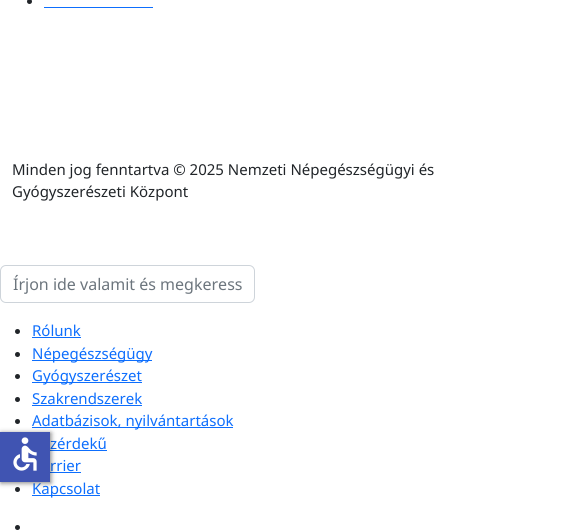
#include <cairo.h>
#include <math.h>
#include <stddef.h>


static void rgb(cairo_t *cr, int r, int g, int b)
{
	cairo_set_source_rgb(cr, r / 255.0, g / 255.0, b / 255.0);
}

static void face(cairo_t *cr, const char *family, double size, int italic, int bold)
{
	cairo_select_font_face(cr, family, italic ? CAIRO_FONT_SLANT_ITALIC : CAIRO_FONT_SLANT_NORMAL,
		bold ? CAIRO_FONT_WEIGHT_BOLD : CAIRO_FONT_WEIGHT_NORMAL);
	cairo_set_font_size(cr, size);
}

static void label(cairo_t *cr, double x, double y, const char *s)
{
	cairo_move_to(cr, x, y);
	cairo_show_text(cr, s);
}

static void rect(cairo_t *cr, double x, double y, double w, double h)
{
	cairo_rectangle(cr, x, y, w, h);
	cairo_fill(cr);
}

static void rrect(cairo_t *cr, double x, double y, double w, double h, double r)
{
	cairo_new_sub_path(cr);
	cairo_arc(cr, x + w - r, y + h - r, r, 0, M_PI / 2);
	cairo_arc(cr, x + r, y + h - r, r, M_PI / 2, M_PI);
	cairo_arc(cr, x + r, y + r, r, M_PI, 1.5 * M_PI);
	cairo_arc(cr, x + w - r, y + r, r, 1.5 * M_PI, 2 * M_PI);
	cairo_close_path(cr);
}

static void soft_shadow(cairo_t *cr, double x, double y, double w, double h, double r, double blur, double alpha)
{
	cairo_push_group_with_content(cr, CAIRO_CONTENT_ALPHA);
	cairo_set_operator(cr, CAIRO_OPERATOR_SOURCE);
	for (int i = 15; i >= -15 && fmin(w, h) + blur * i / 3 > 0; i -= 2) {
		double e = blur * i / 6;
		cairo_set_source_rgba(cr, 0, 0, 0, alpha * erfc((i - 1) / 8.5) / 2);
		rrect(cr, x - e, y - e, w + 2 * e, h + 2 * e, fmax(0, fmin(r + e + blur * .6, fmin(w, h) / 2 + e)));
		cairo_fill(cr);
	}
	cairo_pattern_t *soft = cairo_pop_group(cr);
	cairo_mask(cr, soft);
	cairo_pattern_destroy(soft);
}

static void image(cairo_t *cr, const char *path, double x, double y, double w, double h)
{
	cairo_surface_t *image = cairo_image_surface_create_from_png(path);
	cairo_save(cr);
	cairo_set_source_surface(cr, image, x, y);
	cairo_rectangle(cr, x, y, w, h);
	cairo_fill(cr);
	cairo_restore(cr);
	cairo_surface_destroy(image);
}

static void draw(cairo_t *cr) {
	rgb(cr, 255, 255, 255);
	cairo_paint(cr);
	rgb(cr, 33, 37, 41);
	cairo_arc(cr, 29.5, 1.5, 2.5, 0, 2 * M_PI);
	cairo_fill(cr);
	rgb(cr, 13, 110, 253);
	rect(cr, 44, 7, 109, 1);
	face(cr, "Noto Sans", 15, 0, 0);
	rgb(cr, 33, 37, 41);
	label(cr, 12, 175, "Minden jog fenntartva © 2025 Nemzeti Népegészségügyi és");
	label(cr, 12, 197, "Gyógyszerészeti Központ");
	rrect(cr, 0.5, 265.5, 254, 37, 5.5);
	rgb(cr, 206, 212, 218);
	cairo_set_line_width(cr, 1);
	cairo_stroke(cr);
	face(cr, "Noto Sans", 16, 0, 0);
	rgb(cr, 108, 117, 125);
	label(cr, 13, 290, "Írjon ide valamit és megkeress");
	rgb(cr, 33, 37, 41);
	cairo_new_path(cr);
	cairo_arc(cr, 17.5, 331.5, 2.5, 0, 2 * M_PI);
	cairo_fill(cr);
	face(cr, "Noto Sans", 15, 0, 0);
	rgb(cr, 13, 110, 253);
	label(cr, 32, 336, "Rólunk");
	rect(cr, 32, 337, 49, 1);
	rgb(cr, 33, 37, 41);
	cairo_new_path(cr);
	cairo_arc(cr, 17.5, 354.5, 2.5, 0, 2 * M_PI);
	cairo_fill(cr);
	rgb(cr, 13, 110, 253);
	rect(cr, 32, 360, 120, 1);
	label(cr, 32, 359, "Népegészségügy");
	rgb(cr, 33, 37, 41);
	cairo_new_path(cr);
	cairo_arc(cr, 17.5, 376.5, 2.5, 0, 2 * M_PI);
	cairo_fill(cr);
	rgb(cr, 13, 110, 253);
	rect(cr, 32, 382, 110, 1);
	label(cr, 32, 381, "Gyógyszerészet");
	rgb(cr, 33, 37, 41);
	cairo_new_path(cr);
	cairo_arc(cr, 17.5, 399.5, 2.5, 0, 2 * M_PI);
	cairo_fill(cr);
	rgb(cr, 13, 110, 253);
	label(cr, 32, 404, "Szakrendszerek");
	rect(cr, 32, 405, 110, 1);
	rgb(cr, 33, 37, 41);
	cairo_new_path(cr);
	cairo_arc(cr, 17.5, 421.5, 2.5, 0, 2 * M_PI);
	cairo_fill(cr);
	rgb(cr, 13, 110, 253);
	rect(cr, 32, 427, 201, 1);
	label(cr, 32, 426, "Adatbázisok, nyilvántartások");
	label(cr, 50, 449, "zérdekű");
	rect(cr, 50, 450, 57, 1);
	label(cr, 50, 471, "rrier");
	rect(cr, 50, 472, 31, 1);
	rgb(cr, 33, 37, 41);
	cairo_new_path(cr);
	cairo_arc(cr, 17.5, 489.5, 2.5, 0, 2 * M_PI);
	cairo_fill(cr);
	rgb(cr, 13, 110, 253);
	rect(cr, 32, 495, 68, 1);
	label(cr, 32, 494, "Kapcsolat");
	rgb(cr, 33, 37, 41);
	cairo_new_path(cr);
	cairo_arc(cr, 17.5, 527.5, 2.5, 0, 2 * M_PI);
	cairo_fill(cr);
	rgb(cr, 0, 0, 0);
	soft_shadow(cr, 1, 433, 50, 50, 0, 2.5, 0.5);
	rgb(cr, 64, 84, 178);
	rect(cr, 0, 432, 50, 50);
	image(cr, "image0.png", 13, 437, 24, 34);
}

int main(void) {
	cairo_surface_t *surface = cairo_image_surface_create(CAIRO_FORMAT_RGB24, 564, 532);
	cairo_t *cr = cairo_create(surface);
	cairo_font_options_t *options = cairo_font_options_create();
	cairo_font_options_set_hint_metrics(options, CAIRO_HINT_METRICS_OFF);
	cairo_font_options_set_hint_style(options, CAIRO_HINT_STYLE_NONE);
	cairo_set_font_options(cr, options);
	cairo_set_miter_limit(cr, 4);
	draw(cr);
	cairo_surface_write_to_png(surface, "render.png");
	cairo_font_options_destroy(options);
	cairo_destroy(cr);
	cairo_surface_destroy(surface);
	return 0;
}
